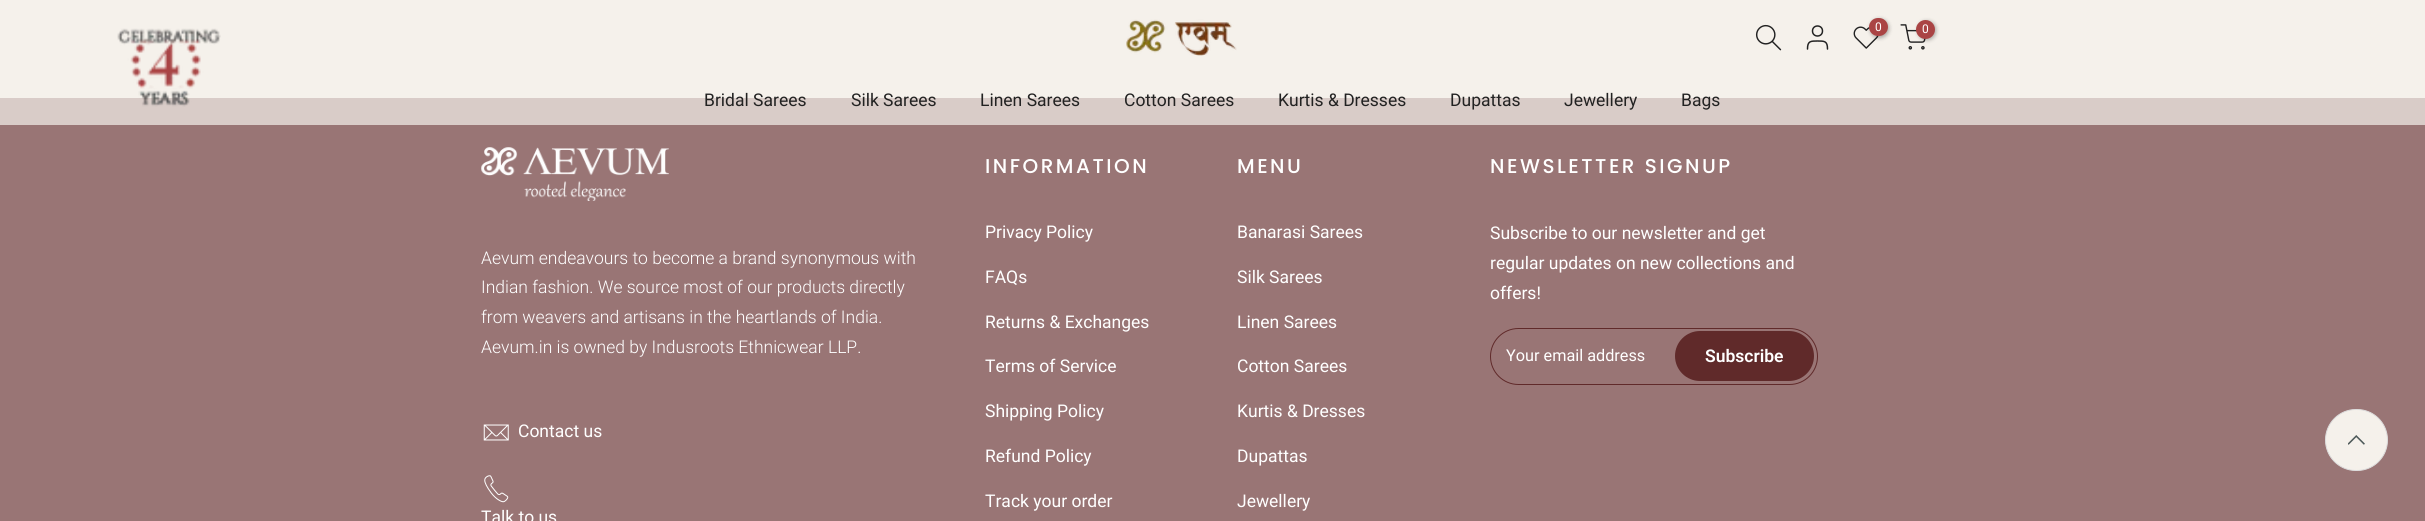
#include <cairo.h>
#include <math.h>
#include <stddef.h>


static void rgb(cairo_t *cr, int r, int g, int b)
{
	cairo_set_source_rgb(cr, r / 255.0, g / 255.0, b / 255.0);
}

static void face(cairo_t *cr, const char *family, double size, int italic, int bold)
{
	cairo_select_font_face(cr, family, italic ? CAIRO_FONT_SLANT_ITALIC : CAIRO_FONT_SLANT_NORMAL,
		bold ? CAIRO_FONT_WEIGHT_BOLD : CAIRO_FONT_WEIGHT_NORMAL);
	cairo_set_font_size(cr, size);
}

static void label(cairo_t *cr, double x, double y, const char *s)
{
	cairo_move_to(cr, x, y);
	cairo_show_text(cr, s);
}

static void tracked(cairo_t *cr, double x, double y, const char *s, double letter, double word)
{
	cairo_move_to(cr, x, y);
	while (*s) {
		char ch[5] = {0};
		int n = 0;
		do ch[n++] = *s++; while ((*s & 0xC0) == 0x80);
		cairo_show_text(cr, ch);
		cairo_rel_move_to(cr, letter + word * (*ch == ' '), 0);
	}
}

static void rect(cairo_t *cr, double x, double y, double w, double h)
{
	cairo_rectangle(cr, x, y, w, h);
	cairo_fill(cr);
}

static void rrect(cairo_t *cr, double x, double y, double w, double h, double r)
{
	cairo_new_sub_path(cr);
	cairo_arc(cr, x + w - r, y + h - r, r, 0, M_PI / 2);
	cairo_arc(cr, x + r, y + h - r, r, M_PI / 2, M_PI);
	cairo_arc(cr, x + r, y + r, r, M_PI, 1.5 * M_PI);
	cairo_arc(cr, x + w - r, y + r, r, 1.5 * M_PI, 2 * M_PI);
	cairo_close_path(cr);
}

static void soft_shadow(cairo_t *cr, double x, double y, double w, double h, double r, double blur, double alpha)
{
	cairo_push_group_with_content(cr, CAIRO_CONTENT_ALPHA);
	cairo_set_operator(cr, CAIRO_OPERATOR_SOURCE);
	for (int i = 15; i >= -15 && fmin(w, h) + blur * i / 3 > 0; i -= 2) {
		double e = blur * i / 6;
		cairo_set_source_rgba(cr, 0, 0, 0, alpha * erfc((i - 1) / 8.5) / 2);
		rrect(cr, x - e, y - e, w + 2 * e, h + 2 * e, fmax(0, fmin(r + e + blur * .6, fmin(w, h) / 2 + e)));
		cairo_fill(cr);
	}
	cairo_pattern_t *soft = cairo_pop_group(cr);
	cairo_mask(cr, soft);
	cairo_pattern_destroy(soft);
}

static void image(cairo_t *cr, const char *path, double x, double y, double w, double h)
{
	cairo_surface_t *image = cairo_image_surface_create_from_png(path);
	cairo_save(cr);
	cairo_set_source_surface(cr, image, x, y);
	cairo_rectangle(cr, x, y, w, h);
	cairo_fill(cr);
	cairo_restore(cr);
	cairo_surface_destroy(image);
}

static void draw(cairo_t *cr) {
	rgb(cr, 245, 241, 235);
	cairo_paint(cr);
	rgb(cr, 217, 204, 200);
	rect(cr, 0, 98, 2425, 27);
	image(cr, "image0.png", 117, 28, 104, 79);
	image(cr, "image1.png", 1126, 19, 111, 37);
	image(cr, "image2.png", 1755, 24, 27, 27);
	cairo_arc(cr, 1817.5, 31, 5, 0, 2 * M_PI);
	rgb(cr, 34, 34, 34);
	cairo_set_line_width(cr, 1.5);
	cairo_stroke(cr);
	cairo_new_path(cr);
	cairo_move_to(cr, 1827.5, 49);
	cairo_curve_to(cr, 1827.5, 41, 1824.5, 41, 1817.5, 41);
	cairo_curve_to(cr, 1810.5, 41, 1807.5, 41, 1807.5, 49);
	cairo_set_line_cap(cr, CAIRO_LINE_CAP_ROUND);
	cairo_set_line_join(cr, CAIRO_LINE_JOIN_ROUND);
	cairo_stroke(cr);
	image(cr, "image3.png", 1853, 26, 26, 23);
	rgb(cr, 0, 0, 0);
	soft_shadow(cr, 1870, 19, 19, 19, 9.5, 2, 0.3);
	rgb(cr, 170, 68, 68);
	rrect(cr, 1869, 18, 19, 18, 9);
	cairo_fill(cr);
	face(cr, "Roboto", 12, 0, 0);
	rgb(cr, 255, 255, 255);
	label(cr, 1875, 31, "0");
	image(cr, "image4.png", 1900, 24, 26, 26);
	rgb(cr, 0, 0, 0);
	soft_shadow(cr, 1918, 21, 18, 19, 9, 2, 0.3);
	rgb(cr, 170, 68, 68);
	cairo_arc(cr, 1925.5, 29.5, 9.5, 0, 2 * M_PI);
	cairo_fill(cr);
	rgb(cr, 255, 255, 255);
	label(cr, 1922, 33, "0");
	face(cr, "Roboto", 17.5, 0, 0);
	rgb(cr, 34, 34, 34);
	label(cr, 704, 106, "Bridal Sarees");
	label(cr, 851, 106, "Silk Sarees");
	label(cr, 980, 106, "Linen Sarees");
	label(cr, 1124, 106, "Cotton Sarees");
	label(cr, 1278, 106, "Kurtis & Dresses");
	label(cr, 1450, 106, "Dupattas");
	label(cr, 1564, 106, "Jewellery");
	label(cr, 1681, 106, "Bags");
	rgb(cr, 153, 117, 117);
	rect(cr, 0, 125, 2425, 396);
	image(cr, "image5.png", 481, 147, 188, 54);
	face(cr, "Roboto Light", 17.5, 0, 0);
	rgb(cr, 255, 255, 255);
	label(cr, 481, 264, "Aevum endeavours to become a brand synonymous with");
	label(cr, 481, 293, "Indian fashion. We source most of our products directly");
	label(cr, 481, 323, "from weavers and artisans in the heartlands of India.");
	label(cr, 481, 353, "Aevum.in is owned by Indusroots Ethnicwear LLP.");
	image(cr, "image6.png", 483, 424, 26, 17);
	face(cr, "Roboto", 17.5, 0, 0);
	label(cr, 518, 437, "Contact us");
	image(cr, "image7.png", 484, 475, 25, 28);
	label(cr, 481, 523, "Talk to us");
	face(cr, "Poppins Medium", 20, 0, 0);
	tracked(cr, 985, 173, "INFORMATION", 2.5, 0);
	face(cr, "Roboto", 17.5, 0, 0);
	label(cr, 985, 238, "Privacy Policy");
	label(cr, 985, 283, "FAQs");
	label(cr, 985, 328, "Returns & Exchanges");
	label(cr, 985, 372, "Terms of Service");
	label(cr, 985, 417, "Shipping Policy");
	label(cr, 985, 462, "Refund Policy");
	label(cr, 985, 507, "Track your order");
	face(cr, "Poppins Medium", 20, 0, 0);
	tracked(cr, 1237, 173, "MENU", 2.5, 0);
	face(cr, "Roboto", 17.5, 0, 0);
	label(cr, 1237, 238, "Banarasi Sarees");
	label(cr, 1237, 283, "Silk Sarees");
	label(cr, 1237, 328, "Linen Sarees");
	label(cr, 1237, 372, "Cotton Sarees");
	label(cr, 1237, 417, "Kurtis & Dresses");
	label(cr, 1237, 462, "Dupattas");
	label(cr, 1237, 507, "Jewellery");
	face(cr, "Poppins Medium", 20, 0, 0);
	tracked(cr, 1490, 173, "NEWSLETTER SIGNUP", 2.5, 0);
	face(cr, "Roboto", 17.5, 0, 0);
	label(cr, 1490, 239, "Subscribe to our newsletter and get");
	label(cr, 1490, 269, "regular updates on new collections and");
	label(cr, 1490, 299, "offers!");
	rrect(cr, 1490.5, 328.5, 327, 56, 28);
	rgb(cr, 96, 42, 42);
	cairo_set_line_width(cr, 1);
	cairo_set_line_cap(cr, CAIRO_LINE_CAP_BUTT);
	cairo_set_line_join(cr, CAIRO_LINE_JOIN_MITER);
	cairo_stroke(cr);
	face(cr, "Roboto", 16.25, 0, 0);
	rgb(cr, 255, 255, 255);
	label(cr, 1506, 361, "Your email address");
	rgb(cr, 96, 42, 42);
	rrect(cr, 1675, 331, 139, 50, 25);
	cairo_fill(cr);
	face(cr, "Roboto SemiBold", 17.5, 0, 0);
	rgb(cr, 255, 255, 255);
	label(cr, 1705, 362, "Subscribe");
	rgb(cr, 245, 241, 235);
	rrect(cr, 2325.5, 409.5, 62, 61, 30.5);
	cairo_fill_preserve(cr);
	rgb(cr, 221, 221, 221);
	cairo_stroke(cr);
	image(cr, "image8.png", 2348, 435, 17, 10);
}

int main(void) {
	cairo_surface_t *surface = cairo_image_surface_create(CAIRO_FORMAT_RGB24, 2425, 521);
	cairo_t *cr = cairo_create(surface);
	cairo_font_options_t *options = cairo_font_options_create();
	cairo_font_options_set_hint_metrics(options, CAIRO_HINT_METRICS_OFF);
	cairo_font_options_set_hint_style(options, CAIRO_HINT_STYLE_NONE);
	cairo_set_font_options(cr, options);
	cairo_set_miter_limit(cr, 4);
	draw(cr);
	cairo_surface_write_to_png(surface, "render.png");
	cairo_font_options_destroy(options);
	cairo_destroy(cr);
	cairo_surface_destroy(surface);
	return 0;
}
